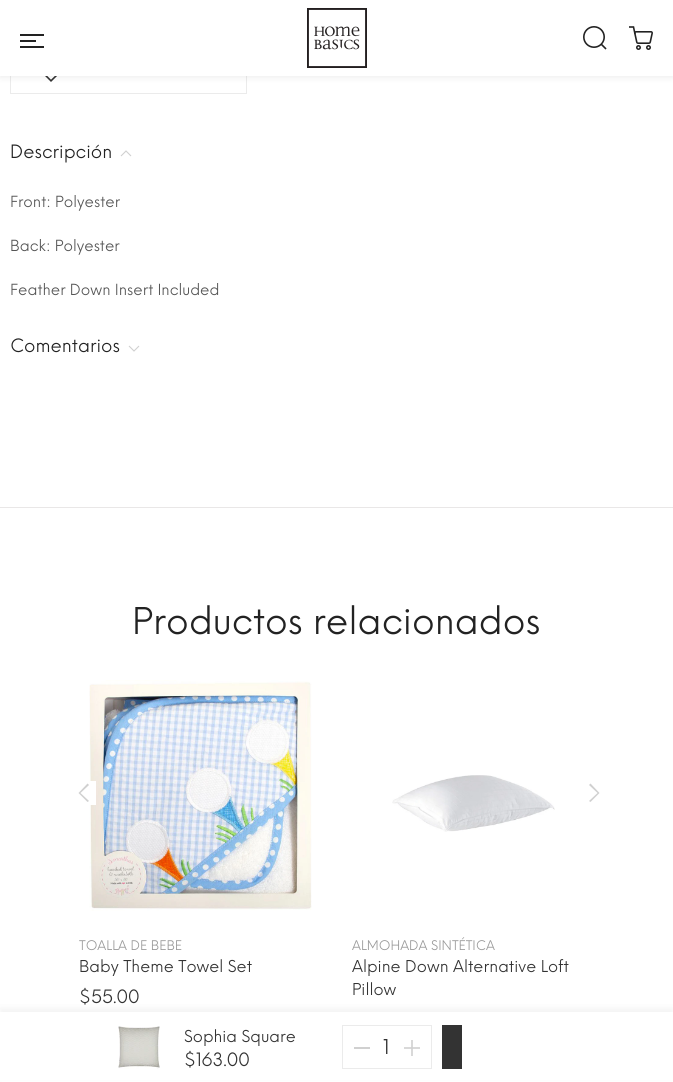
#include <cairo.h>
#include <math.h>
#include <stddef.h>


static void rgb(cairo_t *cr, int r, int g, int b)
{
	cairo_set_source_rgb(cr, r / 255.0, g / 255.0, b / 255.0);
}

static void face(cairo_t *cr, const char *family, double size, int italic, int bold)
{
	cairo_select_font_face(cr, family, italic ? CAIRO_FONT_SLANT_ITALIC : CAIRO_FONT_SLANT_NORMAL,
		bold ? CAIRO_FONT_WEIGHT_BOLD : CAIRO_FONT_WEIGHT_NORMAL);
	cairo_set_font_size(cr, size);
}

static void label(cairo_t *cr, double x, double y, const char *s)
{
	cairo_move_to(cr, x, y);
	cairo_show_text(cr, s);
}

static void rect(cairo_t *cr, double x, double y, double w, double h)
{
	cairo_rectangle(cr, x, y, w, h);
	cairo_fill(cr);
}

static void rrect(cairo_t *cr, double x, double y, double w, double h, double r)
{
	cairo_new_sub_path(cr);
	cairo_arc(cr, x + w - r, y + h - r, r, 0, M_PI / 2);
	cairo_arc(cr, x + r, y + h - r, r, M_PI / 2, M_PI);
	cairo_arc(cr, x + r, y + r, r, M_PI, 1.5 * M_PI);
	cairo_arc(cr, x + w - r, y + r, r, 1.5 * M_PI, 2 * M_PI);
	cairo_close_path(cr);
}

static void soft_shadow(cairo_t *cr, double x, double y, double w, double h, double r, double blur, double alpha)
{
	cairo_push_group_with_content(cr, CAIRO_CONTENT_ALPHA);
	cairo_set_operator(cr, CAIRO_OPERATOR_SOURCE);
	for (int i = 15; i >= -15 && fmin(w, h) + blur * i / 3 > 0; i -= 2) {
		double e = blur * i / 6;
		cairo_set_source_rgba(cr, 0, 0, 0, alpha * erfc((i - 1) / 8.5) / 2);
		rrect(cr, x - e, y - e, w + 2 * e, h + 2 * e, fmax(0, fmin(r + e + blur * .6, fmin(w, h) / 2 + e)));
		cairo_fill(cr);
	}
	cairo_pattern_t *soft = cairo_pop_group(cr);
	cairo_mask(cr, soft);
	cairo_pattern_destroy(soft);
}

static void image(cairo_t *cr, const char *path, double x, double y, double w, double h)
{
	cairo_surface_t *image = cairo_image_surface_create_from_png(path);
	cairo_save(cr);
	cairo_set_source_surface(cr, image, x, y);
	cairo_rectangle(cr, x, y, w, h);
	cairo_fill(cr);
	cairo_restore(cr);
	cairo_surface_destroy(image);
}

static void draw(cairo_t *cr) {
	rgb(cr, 255, 255, 255);
	cairo_paint(cr);
	cairo_rectangle(cr, 10.5, 50.5, 236, 43);
	rgb(cr, 235, 235, 235);
	cairo_set_line_width(cr, 1);
	cairo_stroke(cr);
	image(cr, "image3.png", 45, 76, 12, 6);
	rgb(cr, 0, 0, 0);
	soft_shadow(cr, 0, 0, 673, 76, 0, 4, 0.1);
	rgb(cr, 255, 255, 255);
	rect(cr, 0, 0, 673, 76);
	rgb(cr, 34, 34, 34);
	rect(cr, 20, 34, 24, 2);
	rect(cr, 20, 40, 16, 2);
	rect(cr, 20, 46, 24, 2);
	image(cr, "image0.png", 307, 8, 60, 60);
	image(cr, "image1.png", 583, 26, 24, 24);
	image(cr, "image2.png", 629, 26, 24, 24);
	face(cr, "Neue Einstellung", 18, 0, 0);
	label(cr, 10, 158, "Descripción");
	cairo_new_path(cr);
	cairo_move_to(cr, 121, 156);
	cairo_line_to(cr, 126, 151);
	cairo_line_to(cr, 131, 156);
	rgb(cr, 208, 208, 208);
	cairo_set_line_width(cr, 1.1);
	cairo_stroke(cr);
	face(cr, "Neue Einstellung", 15, 0, 0);
	rgb(cr, 85, 85, 85);
	label(cr, 10, 207, "Front: Polyester");
	label(cr, 10, 251, "Back: Polyester");
	label(cr, 10, 295, "Feather Down Insert Included");
	face(cr, "Neue Einstellung", 18, 0, 0);
	rgb(cr, 34, 34, 34);
	label(cr, 10, 352, "Comentarios");
	cairo_new_path(cr);
	cairo_move_to(cr, 129, 346);
	cairo_line_to(cr, 134, 351);
	cairo_line_to(cr, 139, 346);
	rgb(cr, 208, 208, 208);
	cairo_stroke(cr);
	rgb(cr, 233, 231, 231);
	rect(cr, 0, 507, 673, 1);
	face(cr, "Neue Einstellung", 36, 0, 0);
	rgb(cr, 34, 34, 34);
	label(cr, 132, 634, "Productos relacionados");
	rgb(cr, 208, 208, 208);
	cairo_new_path(cr);
	cairo_move_to(cr, 87.5, 802);
	cairo_line_to(cr, 78.5, 793);
	cairo_line_to(cr, 87.5, 783.5);
	cairo_line_to(cr, 89, 785);
	cairo_line_to(cr, 80.5, 793);
	cairo_line_to(cr, 89, 801);
	cairo_close_path(cr);
	cairo_fill(cr);
	image(cr, "image4.png", 89, 680, 223, 231);
	rgb(cr, 255, 255, 255);
	rect(cr, 90, 781, 6, 24);
	rgb(cr, 208, 208, 208);
	cairo_new_path(cr);
	cairo_move_to(cr, 590.5, 802);
	cairo_line_to(cr, 589, 801);
	cairo_line_to(cr, 597.5, 793);
	cairo_line_to(cr, 589, 785);
	cairo_line_to(cr, 590.5, 783.5);
	cairo_line_to(cr, 599.5, 793);
	cairo_close_path(cr);
	cairo_fill(cr);
	face(cr, "Neue Einstellung", 13, 0, 0);
	rgb(cr, 153, 153, 153);
	label(cr, 79, 950, "TOALLA DE BEBE");
	face(cr, "Neue Einstellung", 16, 0, 0);
	rgb(cr, 51, 51, 51);
	label(cr, 79, 972, "Baby Theme Towel Set");
	face(cr, "Neue Einstellung", 18, 0, 0);
	label(cr, 79, 1003, "$55.00");
	image(cr, "image5.png", 392, 775, 163, 57);
	face(cr, "Neue Einstellung", 13, 0, 0);
	rgb(cr, 153, 153, 153);
	label(cr, 352, 950, "ALMOHADA SINTÉTICA");
	face(cr, "Neue Einstellung", 16, 0, 0);
	rgb(cr, 51, 51, 51);
	label(cr, 352, 972, "Alpine Down Alternative Loft");
	label(cr, 352, 995, "Pillow");
	rgb(cr, 51, 51, 51);
	soft_shadow(cr, 0, 1008, 673, 70, 0, 3, 0.06);
	rgb(cr, 255, 255, 255);
	rect(cr, 0, 1012, 673, 68);
	image(cr, "image6.png", 118, 1026, 42, 43);
	rgb(cr, 51, 51, 51);
	label(cr, 184, 1042, "Sophia Square");
	face(cr, "Neue Einstellung", 18, 0, 0);
	label(cr, 184, 1066, "$163.00");
	cairo_rectangle(cr, 342.5, 1025.5, 89, 43);
	rgb(cr, 235, 235, 235);
	cairo_set_line_width(cr, 1);
	cairo_stroke(cr);
	rgb(cr, 208, 208, 208);
	rect(cr, 354, 1047, 16, 2);
	face(cr, "Neue Einstellung", 20, 0, 0);
	rgb(cr, 51, 51, 51);
	label(cr, 383, 1054, "1");
	image(cr, "image7.png", 404, 1040, 16, 16);
	rect(cr, 442, 1025, 20, 44);
}

int main(void) {
	cairo_surface_t *surface = cairo_image_surface_create(CAIRO_FORMAT_RGB24, 673, 1082);
	cairo_t *cr = cairo_create(surface);
	cairo_font_options_t *options = cairo_font_options_create();
	cairo_font_options_set_hint_metrics(options, CAIRO_HINT_METRICS_OFF);
	cairo_font_options_set_hint_style(options, CAIRO_HINT_STYLE_NONE);
	cairo_set_font_options(cr, options);
	cairo_set_miter_limit(cr, 4);
	draw(cr);
	cairo_surface_write_to_png(surface, "render.png");
	cairo_font_options_destroy(options);
	cairo_destroy(cr);
	cairo_surface_destroy(surface);
	return 0;
}
